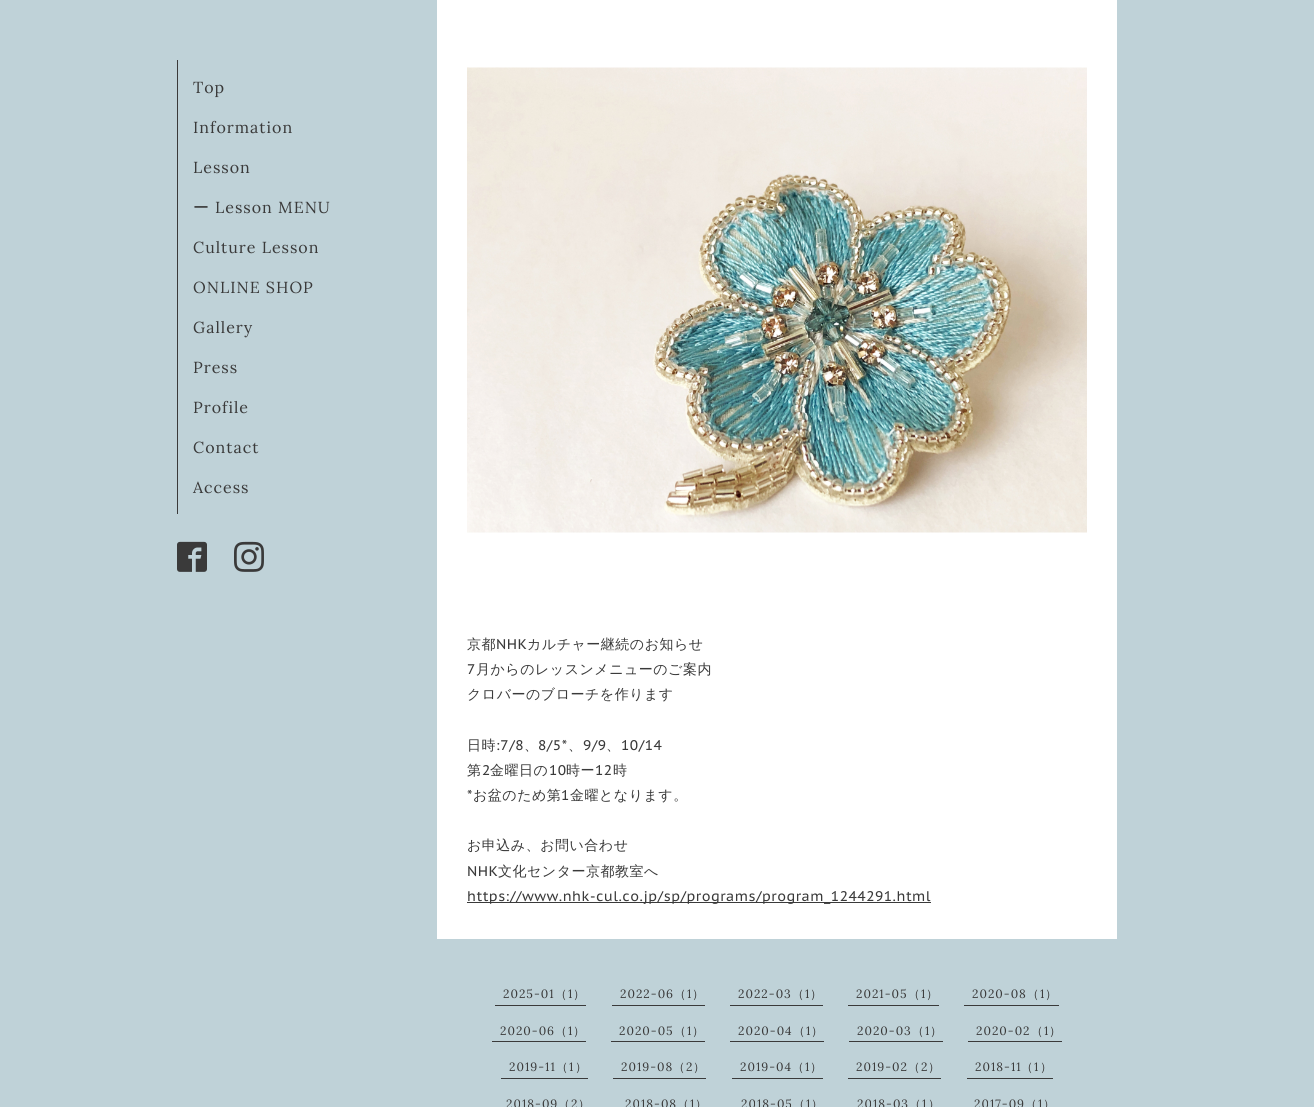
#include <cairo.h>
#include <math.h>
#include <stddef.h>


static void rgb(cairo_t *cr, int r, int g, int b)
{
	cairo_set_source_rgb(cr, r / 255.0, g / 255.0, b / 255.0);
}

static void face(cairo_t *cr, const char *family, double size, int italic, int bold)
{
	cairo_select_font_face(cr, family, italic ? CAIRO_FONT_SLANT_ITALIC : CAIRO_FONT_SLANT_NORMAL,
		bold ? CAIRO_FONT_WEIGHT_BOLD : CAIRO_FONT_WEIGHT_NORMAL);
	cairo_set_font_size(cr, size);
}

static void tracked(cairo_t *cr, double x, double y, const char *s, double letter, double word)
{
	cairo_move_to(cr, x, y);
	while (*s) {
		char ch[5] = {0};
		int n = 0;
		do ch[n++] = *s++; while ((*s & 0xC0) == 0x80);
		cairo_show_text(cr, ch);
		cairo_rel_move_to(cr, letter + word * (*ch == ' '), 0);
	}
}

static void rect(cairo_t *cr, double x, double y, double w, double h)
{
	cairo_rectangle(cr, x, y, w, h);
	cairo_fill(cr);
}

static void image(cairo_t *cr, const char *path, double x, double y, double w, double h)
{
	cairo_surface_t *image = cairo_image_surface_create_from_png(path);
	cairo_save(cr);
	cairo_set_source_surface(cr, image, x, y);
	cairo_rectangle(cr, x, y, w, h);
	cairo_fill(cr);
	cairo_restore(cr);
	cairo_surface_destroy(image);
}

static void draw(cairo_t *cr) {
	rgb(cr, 191, 210, 216);
	cairo_paint(cr);
	rgb(cr, 58, 58, 58);
	rect(cr, 177, 60, 1, 454);
	face(cr, "Lora", 16, 0, 0);
	tracked(cr, 193, 93, "Top", 1, 0);
	tracked(cr, 193, 133, "Information", 1, 0);
	tracked(cr, 193, 173, "Lesson", 1, 0);
	face(cr, "WenQuanYi Zen Hei Medium", 16, 0, 0);
	tracked(cr, 193, 213, "ー", 1, 0);
	face(cr, "Lora", 16, 0, 0);
	tracked(cr, 215, 213, "Lesson MENU", 1, 0);
	tracked(cr, 193, 253, "Culture Lesson", 1, 0);
	tracked(cr, 193, 293, "ONLINE SHOP", 1, 0);
	tracked(cr, 193, 333, "Gallery", 1, 0);
	tracked(cr, 193, 373, "Press", 1, 0);
	tracked(cr, 193, 413, "Profile", 1, 0);
	tracked(cr, 193, 453, "Contact", 1, 0);
	tracked(cr, 193, 493, "Access", 1, 0);
	image(cr, "image0.png", 177, 541, 30, 31);
	image(cr, "image1.png", 234, 541, 30, 31);
	rgb(cr, 255, 255, 255);
	rect(cr, 437, 0, 680, 939);
	image(cr, "image2.png", 467, 67, 620, 466);
	face(cr, "WenQuanYi Zen Hei Medium", 14, 0, 0);
	rgb(cr, 58, 58, 58);
	tracked(cr, 467, 649, "京都", 0.5, 0);
	face(cr, "PT Sans Caption", 14, 0, 0);
	tracked(cr, 496, 649, "NHK", 0.5, 0);
	face(cr, "WenQuanYi Zen Hei Medium", 14, 0, 0);
	tracked(cr, 527, 649, "カルチャー継続のお知らせ", 0.5, 0);
	face(cr, "PT Sans Caption", 14, 0, 0);
	tracked(cr, 467, 674, "7", 0.5, 0);
	face(cr, "WenQuanYi Zen Hei Medium", 14, 0, 0);
	tracked(cr, 476, 674, "月からのレッスンメニューのご案内", 0.5, 0);
	tracked(cr, 467, 699, "クロバーのブローチを作ります", 0.5, 0);
	tracked(cr, 467, 750, "日時", 0.5, 0);
	face(cr, "PT Sans Caption", 14, 0, 0);
	tracked(cr, 496, 750, ":7/8", 0.5, 0);
	face(cr, "WenQuanYi Zen Hei Medium", 14, 0, 0);
	tracked(cr, 524, 750, "、", 0.5, 0);
	face(cr, "PT Sans Caption", 14, 0, 0);
	tracked(cr, 538, 750, "8/5*", 0.5, 0);
	face(cr, "WenQuanYi Zen Hei Medium", 14, 0, 0);
	tracked(cr, 568, 750, "、", 0.5, 0);
	face(cr, "PT Sans Caption", 14, 0, 0);
	tracked(cr, 583, 750, "9/9", 0.5, 0);
	face(cr, "WenQuanYi Zen Hei Medium", 14, 0, 0);
	tracked(cr, 606, 750, "、", 0.5, 0);
	face(cr, "PT Sans Caption", 14, 0, 0);
	tracked(cr, 621, 750, "10/14", 0.5, 0);
	face(cr, "WenQuanYi Zen Hei Medium", 14, 0, 0);
	tracked(cr, 467, 775, "第", 0.5, 0);
	face(cr, "PT Sans Caption", 14, 0, 0);
	tracked(cr, 482, 775, "2", 0.5, 0);
	face(cr, "WenQuanYi Zen Hei Medium", 14, 0, 0);
	tracked(cr, 490, 775, "金曜日の", 0.5, 0);
	face(cr, "PT Sans Caption", 14, 0, 0);
	tracked(cr, 549, 775, "10", 0.5, 0);
	face(cr, "WenQuanYi Zen Hei Medium", 14, 0, 0);
	tracked(cr, 566, 775, "時ー", 0.5, 0);
	face(cr, "PT Sans Caption", 14, 0, 0);
	tracked(cr, 595, 775, "12", 0.5, 0);
	face(cr, "WenQuanYi Zen Hei Medium", 14, 0, 0);
	tracked(cr, 613, 775, "時", 0.5, 0);
	face(cr, "PT Sans Caption", 14, 0, 0);
	tracked(cr, 467, 800, "*", 0.5, 0);
	face(cr, "WenQuanYi Zen Hei Medium", 14, 0, 0);
	tracked(cr, 473, 800, "お盆のため第", 0.5, 0);
	face(cr, "PT Sans Caption", 14, 0, 0);
	tracked(cr, 561, 800, "1", 0.5, 0);
	face(cr, "WenQuanYi Zen Hei Medium", 14, 0, 0);
	tracked(cr, 570, 800, "金曜となります。", 0.5, 0);
	tracked(cr, 467, 850, "お申込み、お問い合わせ", 0.5, 0);
	face(cr, "PT Sans Caption", 14, 0, 0);
	tracked(cr, 467, 876, "NHK", 0.5, 0);
	face(cr, "WenQuanYi Zen Hei Medium", 14, 0, 0);
	tracked(cr, 498, 876, "文化センター京都教室へ", 0.5, 0);
	rect(cr, 467, 902, 464, 1);
	face(cr, "PT Sans Caption", 14, 0, 0);
	tracked(cr, 467, 901, "https://www.nhk-cul.co.jp/sp/programs/program_1244291.html", 0.5, 0);
	rect(cr, 495, 1005, 91, 1);
	face(cr, "Lora", 12, 0, 0);
	tracked(cr, 503, 998, "2025-01", 1, 0);
	face(cr, "WenQuanYi Zen Hei Medium", 12, 0, 0);
	tracked(cr, 555, 998, "（", 1, 0);
	face(cr, "Lora", 12, 0, 0);
	tracked(cr, 568, 998, "1", 1, 0);
	face(cr, "WenQuanYi Zen Hei Medium", 12, 0, 0);
	tracked(cr, 573, 998, "）", 1, 0);
	rect(cr, 612, 1005, 93, 1);
	face(cr, "Lora", 12, 0, 0);
	tracked(cr, 620, 998, "2022-06", 1, 0);
	face(cr, "WenQuanYi Zen Hei Medium", 12, 0, 0);
	tracked(cr, 674, 998, "（", 1, 0);
	face(cr, "Lora", 12, 0, 0);
	tracked(cr, 687, 998, "1", 1, 0);
	face(cr, "WenQuanYi Zen Hei Medium", 12, 0, 0);
	tracked(cr, 692, 998, "）", 1, 0);
	rect(cr, 730, 1005, 93, 1);
	face(cr, "Lora", 12, 0, 0);
	tracked(cr, 738, 998, "2022-03", 1, 0);
	face(cr, "WenQuanYi Zen Hei Medium", 12, 0, 0);
	tracked(cr, 792, 998, "（", 1, 0);
	face(cr, "Lora", 12, 0, 0);
	tracked(cr, 805, 998, "1", 1, 0);
	face(cr, "WenQuanYi Zen Hei Medium", 12, 0, 0);
	tracked(cr, 810, 998, "）", 1, 0);
	rect(cr, 848, 1005, 91, 1);
	face(cr, "Lora", 12, 0, 0);
	tracked(cr, 856, 998, "2021-05", 1, 0);
	face(cr, "WenQuanYi Zen Hei Medium", 12, 0, 0);
	tracked(cr, 908, 998, "（", 1, 0);
	face(cr, "Lora", 12, 0, 0);
	tracked(cr, 921, 998, "1", 1, 0);
	face(cr, "WenQuanYi Zen Hei Medium", 12, 0, 0);
	tracked(cr, 926, 998, "）", 1, 0);
	rect(cr, 964, 1005, 95, 1);
	face(cr, "Lora", 12, 0, 0);
	tracked(cr, 972, 998, "2020-08", 1, 0);
	face(cr, "WenQuanYi Zen Hei Medium", 12, 0, 0);
	tracked(cr, 1027, 998, "（", 1, 0);
	face(cr, "Lora", 12, 0, 0);
	tracked(cr, 1040, 998, "1", 1, 0);
	face(cr, "WenQuanYi Zen Hei Medium", 12, 0, 0);
	tracked(cr, 1045, 998, "）", 1, 0);
	rect(cr, 492, 1041, 94, 1);
	face(cr, "Lora", 12, 0, 0);
	tracked(cr, 500, 1035, "2020-06", 1, 0);
	face(cr, "WenQuanYi Zen Hei Medium", 12, 0, 0);
	tracked(cr, 555, 1035, "（", 1, 0);
	face(cr, "Lora", 12, 0, 0);
	tracked(cr, 568, 1035, "1", 1, 0);
	face(cr, "WenQuanYi Zen Hei Medium", 12, 0, 0);
	tracked(cr, 573, 1035, "）", 1, 0);
	rect(cr, 611, 1041, 94, 1);
	face(cr, "Lora", 12, 0, 0);
	tracked(cr, 619, 1035, "2020-05", 1, 0);
	face(cr, "WenQuanYi Zen Hei Medium", 12, 0, 0);
	tracked(cr, 674, 1035, "（", 1, 0);
	face(cr, "Lora", 12, 0, 0);
	tracked(cr, 687, 1035, "1", 1, 0);
	face(cr, "WenQuanYi Zen Hei Medium", 12, 0, 0);
	tracked(cr, 692, 1035, "）", 1, 0);
	rect(cr, 730, 1041, 94, 1);
	face(cr, "Lora", 12, 0, 0);
	tracked(cr, 738, 1035, "2020-04", 1, 0);
	face(cr, "WenQuanYi Zen Hei Medium", 12, 0, 0);
	tracked(cr, 793, 1035, "（", 1, 0);
	face(cr, "Lora", 12, 0, 0);
	tracked(cr, 806, 1035, "1", 1, 0);
	face(cr, "WenQuanYi Zen Hei Medium", 12, 0, 0);
	tracked(cr, 811, 1035, "）", 1, 0);
	rect(cr, 849, 1041, 94, 1);
	face(cr, "Lora", 12, 0, 0);
	tracked(cr, 857, 1035, "2020-03", 1, 0);
	face(cr, "WenQuanYi Zen Hei Medium", 12, 0, 0);
	tracked(cr, 912, 1035, "（", 1, 0);
	face(cr, "Lora", 12, 0, 0);
	tracked(cr, 925, 1035, "1", 1, 0);
	face(cr, "WenQuanYi Zen Hei Medium", 12, 0, 0);
	tracked(cr, 930, 1035, "）", 1, 0);
	rect(cr, 968, 1041, 94, 1);
	face(cr, "Lora", 12, 0, 0);
	tracked(cr, 976, 1035, "2020-02", 1, 0);
	face(cr, "WenQuanYi Zen Hei Medium", 12, 0, 0);
	tracked(cr, 1031, 1035, "（", 1, 0);
	face(cr, "Lora", 12, 0, 0);
	tracked(cr, 1044, 1035, "1", 1, 0);
	face(cr, "WenQuanYi Zen Hei Medium", 12, 0, 0);
	tracked(cr, 1049, 1035, "）", 1, 0);
	rect(cr, 501, 1078, 87, 1);
	face(cr, "Lora", 12, 0, 0);
	tracked(cr, 509, 1071, "2019-11", 1, 0);
	face(cr, "WenQuanYi Zen Hei Medium", 12, 0, 0);
	tracked(cr, 556, 1071, "（", 1, 0);
	face(cr, "Lora", 12, 0, 0);
	tracked(cr, 569, 1071, "1", 1, 0);
	face(cr, "WenQuanYi Zen Hei Medium", 12, 0, 0);
	tracked(cr, 575, 1071, "）", 1, 0);
	rect(cr, 613, 1078, 93, 1);
	face(cr, "Lora", 12, 0, 0);
	tracked(cr, 621, 1071, "2019-08", 1, 0);
	face(cr, "WenQuanYi Zen Hei Medium", 12, 0, 0);
	tracked(cr, 673, 1071, "（", 1, 0);
	face(cr, "Lora", 12, 0, 0);
	tracked(cr, 686, 1071, "2", 1, 0);
	face(cr, "WenQuanYi Zen Hei Medium", 12, 0, 0);
	tracked(cr, 693, 1071, "）", 1, 0);
	rect(cr, 732, 1078, 91, 1);
	face(cr, "Lora", 12, 0, 0);
	tracked(cr, 740, 1071, "2019-04", 1, 0);
	face(cr, "WenQuanYi Zen Hei Medium", 12, 0, 0);
	tracked(cr, 792, 1071, "（", 1, 0);
	face(cr, "Lora", 12, 0, 0);
	tracked(cr, 805, 1071, "1", 1, 0);
	face(cr, "WenQuanYi Zen Hei Medium", 12, 0, 0);
	tracked(cr, 810, 1071, "）", 1, 0);
	rect(cr, 848, 1078, 93, 1);
	face(cr, "Lora", 12, 0, 0);
	tracked(cr, 856, 1071, "2019-02", 1, 0);
	face(cr, "WenQuanYi Zen Hei Medium", 12, 0, 0);
	tracked(cr, 908, 1071, "（", 1, 0);
	face(cr, "Lora", 12, 0, 0);
	tracked(cr, 921, 1071, "2", 1, 0);
	face(cr, "WenQuanYi Zen Hei Medium", 12, 0, 0);
	tracked(cr, 928, 1071, "）", 1, 0);
	rect(cr, 967, 1078, 86, 1);
	face(cr, "Lora", 12, 0, 0);
	tracked(cr, 975, 1071, "2018-11", 1, 0);
	face(cr, "WenQuanYi Zen Hei Medium", 12, 0, 0);
	tracked(cr, 1021, 1071, "（", 1, 0);
	face(cr, "Lora", 12, 0, 0);
	tracked(cr, 1034, 1071, "1", 1, 0);
	face(cr, "WenQuanYi Zen Hei Medium", 12, 0, 0);
	tracked(cr, 1040, 1071, "）", 1, 0);
	face(cr, "Lora", 12, 0, 0);
	tracked(cr, 506, 1108, "2018-09", 1, 0);
	face(cr, "WenQuanYi Zen Hei Medium", 12, 0, 0);
	tracked(cr, 558, 1108, "（", 1, 0);
	face(cr, "Lora", 12, 0, 0);
	tracked(cr, 571, 1108, "2", 1, 0);
	face(cr, "WenQuanYi Zen Hei Medium", 12, 0, 0);
	tracked(cr, 578, 1108, "）", 1, 0);
	face(cr, "Lora", 12, 0, 0);
	tracked(cr, 625, 1108, "2018-08", 1, 0);
	face(cr, "WenQuanYi Zen Hei Medium", 12, 0, 0);
	tracked(cr, 677, 1108, "（", 1, 0);
	face(cr, "Lora", 12, 0, 0);
	tracked(cr, 690, 1108, "1", 1, 0);
	face(cr, "WenQuanYi Zen Hei Medium", 12, 0, 0);
	tracked(cr, 695, 1108, "）", 1, 0);
	face(cr, "Lora", 12, 0, 0);
	tracked(cr, 741, 1108, "2018-05", 1, 0);
	face(cr, "WenQuanYi Zen Hei Medium", 12, 0, 0);
	tracked(cr, 793, 1108, "（", 1, 0);
	face(cr, "Lora", 12, 0, 0);
	tracked(cr, 806, 1108, "1", 1, 0);
	face(cr, "WenQuanYi Zen Hei Medium", 12, 0, 0);
	tracked(cr, 811, 1108, "）", 1, 0);
	face(cr, "Lora", 12, 0, 0);
	tracked(cr, 857, 1108, "2018-03", 1, 0);
	face(cr, "WenQuanYi Zen Hei Medium", 12, 0, 0);
	tracked(cr, 909, 1108, "（", 1, 0);
	face(cr, "Lora", 12, 0, 0);
	tracked(cr, 922, 1108, "1", 1, 0);
	face(cr, "WenQuanYi Zen Hei Medium", 12, 0, 0);
	tracked(cr, 928, 1108, "）", 1, 0);
	face(cr, "Lora", 12, 0, 0);
	tracked(cr, 974, 1108, "2017-09", 1, 0);
	face(cr, "WenQuanYi Zen Hei Medium", 12, 0, 0);
	tracked(cr, 1025, 1108, "（", 1, 0);
	face(cr, "Lora", 12, 0, 0);
	tracked(cr, 1038, 1108, "1", 1, 0);
	face(cr, "WenQuanYi Zen Hei Medium", 12, 0, 0);
	tracked(cr, 1043, 1108, "）", 1, 0);
}

int main(void) {
	cairo_surface_t *surface = cairo_image_surface_create(CAIRO_FORMAT_RGB24, 1314, 1107);
	cairo_t *cr = cairo_create(surface);
	cairo_font_options_t *options = cairo_font_options_create();
	cairo_font_options_set_hint_metrics(options, CAIRO_HINT_METRICS_OFF);
	cairo_font_options_set_hint_style(options, CAIRO_HINT_STYLE_NONE);
	cairo_set_font_options(cr, options);
	cairo_set_miter_limit(cr, 4);
	draw(cr);
	cairo_surface_write_to_png(surface, "render.png");
	cairo_font_options_destroy(options);
	cairo_destroy(cr);
	cairo_surface_destroy(surface);
	return 0;
}
